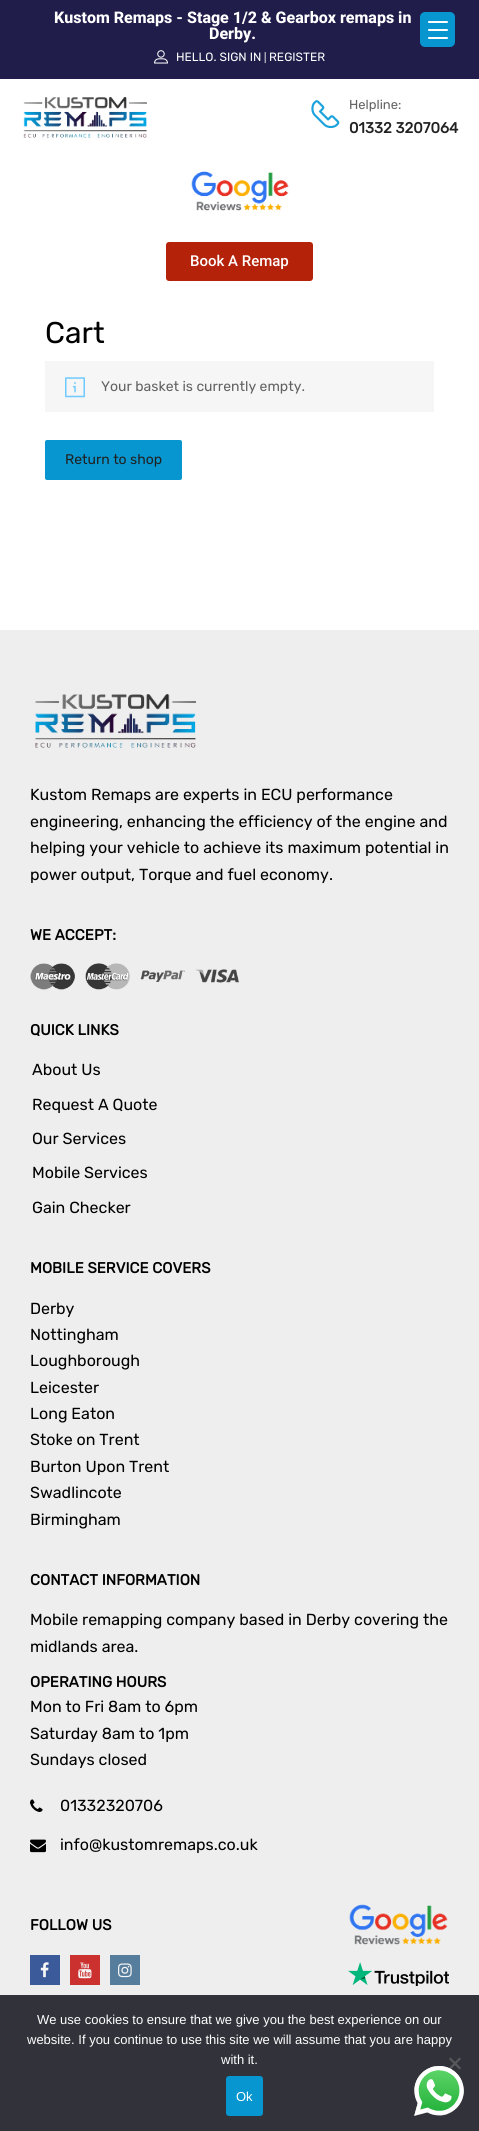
#include <cairo.h>
#include <math.h>
#include <stddef.h>


static void rgb(cairo_t *cr, int r, int g, int b)
{
	cairo_set_source_rgb(cr, r / 255.0, g / 255.0, b / 255.0);
}

static void face(cairo_t *cr, const char *family, double size, int italic, int bold)
{
	cairo_select_font_face(cr, family, italic ? CAIRO_FONT_SLANT_ITALIC : CAIRO_FONT_SLANT_NORMAL,
		bold ? CAIRO_FONT_WEIGHT_BOLD : CAIRO_FONT_WEIGHT_NORMAL);
	cairo_set_font_size(cr, size);
}

static void label(cairo_t *cr, double x, double y, const char *s)
{
	cairo_move_to(cr, x, y);
	cairo_show_text(cr, s);
}

static void rect(cairo_t *cr, double x, double y, double w, double h)
{
	cairo_rectangle(cr, x, y, w, h);
	cairo_fill(cr);
}

static void rrect(cairo_t *cr, double x, double y, double w, double h, double r)
{
	cairo_new_sub_path(cr);
	cairo_arc(cr, x + w - r, y + h - r, r, 0, M_PI / 2);
	cairo_arc(cr, x + r, y + h - r, r, M_PI / 2, M_PI);
	cairo_arc(cr, x + r, y + r, r, M_PI, 1.5 * M_PI);
	cairo_arc(cr, x + w - r, y + r, r, 1.5 * M_PI, 2 * M_PI);
	cairo_close_path(cr);
}

static void image(cairo_t *cr, const char *path, double x, double y, double w, double h)
{
	cairo_surface_t *image = cairo_image_surface_create_from_png(path);
	cairo_save(cr);
	cairo_set_source_surface(cr, image, x, y);
	cairo_rectangle(cr, x, y, w, h);
	cairo_fill(cr);
	cairo_restore(cr);
	cairo_surface_destroy(image);
}

static void draw(cairo_t *cr) {
	rgb(cr, 255, 255, 255);
	cairo_paint(cr);
	rgb(cr, 32, 29, 75);
	rect(cr, 0, 0, 479, 79);
	face(cr, "Roboto ExtraBold", 16, 0, 0);
	rgb(cr, 255, 255, 255);
	label(cr, 54, 23, "Kustom Remaps - Stage 1/2 & Gearbox remaps in");
	label(cr, 209, 39, "Derby.");
	image(cr, "image0.png", 154, 50, 14, 14);
	face(cr, "Rubik Light", 12, 0, 0);
	label(cr, 176, 61, "HELLO. SIGN IN");
	face(cr, "Rubik Light", 10, 0, 0);
	label(cr, 264, 61, "|");
	face(cr, "Rubik Light", 12, 0, 0);
	label(cr, 269, 61, "REGISTER");
	image(cr, "image1.png", 23, 96, 124, 42);
	image(cr, "image2.png", 311, 100, 29, 29);
	face(cr, "Rubik Light", 13, 0, 0);
	rgb(cr, 98, 98, 98);
	label(cr, 349, 109, "Helpline:");
	face(cr, "Rubik", 15, 0, 1);
	rgb(cr, 33, 33, 33);
	label(cr, 349, 133, "01332 3207064");
	image(cr, "image3.png", 191, 171, 98, 40);
	rgb(cr, 180, 34, 9);
	rrect(cr, 166, 242, 147, 39, 3);
	cairo_fill(cr);
	face(cr, "Roboto Medium", 15, 0, 0);
	rgb(cr, 255, 255, 255);
	label(cr, 190, 266, "Book A Remap");
	face(cr, "Rubik Light", 30, 0, 0);
	rgb(cr, 0, 0, 0);
	label(cr, 45, 343, "Cart");
	rgb(cr, 246, 246, 246);
	rect(cr, 45, 361, 389, 51);
	image(cr, "image4.png", 65, 377, 20, 21);
	face(cr, "Rubik Light", 14, 0, 0);
	rgb(cr, 98, 98, 98);
	label(cr, 101, 391, "Your basket is currently empty.");
	rgb(cr, 7, 150, 208);
	rrect(cr, 45, 440, 137, 40, 2);
	cairo_fill(cr);
	rgb(cr, 33, 33, 33);
	label(cr, 65, 464, "Return to shop");
	rgb(cr, 238, 238, 238);
	rect(cr, 0, 630, 479, 1365);
	image(cr, "image5.png", 35, 694, 161, 54);
	face(cr, "Rubik Light", 16, 0, 0);
	rgb(cr, 0, 0, 0);
	label(cr, 30, 800, "Kustom Remaps are experts in ECU performance");
	label(cr, 30, 827, "engineering, enhancing the efficiency of the engine and");
	label(cr, 30, 853, "helping your vehicle to achieve its maximum potential in");
	label(cr, 30, 880, "power output, Torque and fuel economy.");
	face(cr, "Rubik", 15, 0, 1);
	label(cr, 30, 940, "WE ACCEPT:");
	image(cr, "image6.png", 30, 963, 45, 27);
	image(cr, "image7.png", 85, 963, 45, 27);
	image(cr, "image8.png", 140, 970, 45, 12);
	image(cr, "image9.png", 195, 969, 44, 14);
	label(cr, 30, 1035, "QUICK LINKS");
	face(cr, "Rubik Light", 16, 0, 0);
	label(cr, 32, 1075, "About Us");
	label(cr, 32, 1110, "Request A Quote");
	label(cr, 32, 1144, "Our Services");
	label(cr, 32, 1178, "Mobile Services");
	label(cr, 32, 1213, "Gain Checker");
	face(cr, "Rubik", 15, 0, 1);
	label(cr, 30, 1273, "MOBILE SERVICE COVERS");
	face(cr, "Rubik Light", 16, 0, 0);
	label(cr, 30, 1314, "Derby");
	label(cr, 30, 1340, "Nottingham");
	label(cr, 30, 1366, "Loughborough");
	label(cr, 30, 1393, "Leicester");
	label(cr, 30, 1419, "Long Eaton");
	label(cr, 30, 1445, "Stoke on Trent");
	label(cr, 30, 1472, "Burton Upon Trent");
	label(cr, 30, 1498, "Swadlincote");
	label(cr, 30, 1525, "Birmingham");
	face(cr, "Rubik", 15, 0, 1);
	label(cr, 30, 1585, "CONTACT INFORMATION");
	face(cr, "Rubik Light", 16, 0, 0);
	label(cr, 30, 1625, "Mobile remapping company based in Derby covering the");
	label(cr, 30, 1652, "midlands area.");
	face(cr, "Rubik", 15, 0, 1);
	label(cr, 30, 1687, "OPERATING HOURS");
	face(cr, "Rubik Light", 16, 0, 0);
	label(cr, 30, 1712, "Mon to Fri 8am to 6pm");
	label(cr, 30, 1739, "Saturday 8am to 1pm");
	label(cr, 30, 1765, "Sundays closed");
	image(cr, "image10.png", 30, 1799, 13, 13);
	label(cr, 60, 1811, "01332320706");
	image(cr, "image11.png", 30, 1839, 16, 14);
	label(cr, 60, 1850, "info@kustomremaps.co.uk");
	face(cr, "Rubik", 15, 0, 1);
	label(cr, 30, 1930, "FOLLOW US");
	rgb(cr, 59, 90, 154);
	rect(cr, 30, 1955, 30, 30);
	image(cr, "image12.png", 40, 1962, 9, 16);
	rgb(cr, 203, 49, 47);
	rect(cr, 70, 1955, 30, 30);
	image(cr, "image13.png", 78, 1962, 14, 17);
	rgb(cr, 86, 125, 156);
	rect(cr, 110, 1955, 30, 30);
	image(cr, "image14.png", 118, 1963, 14, 15);
	image(cr, "image15.png", 349, 1904, 99, 41);
	image(cr, "image16.png", 348, 1962, 101, 24);
	rgb(cr, 7, 150, 208);
	rrect(cr, 420, 12, 35, 35, 5);
	cairo_fill(cr);
	rgb(cr, 255, 255, 255);
	rrect(cr, 428, 29, 20, 2, 1);
	cairo_fill(cr);
	rrect(cr, 428, 21, 20, 2, 1);
	cairo_fill(cr);
	rrect(cr, 428, 37, 20, 2, 1);
	cairo_fill(cr);
	rgb(cr, 50, 50, 58);
	rect(cr, 0, 1995, 479, 136);
	face(cr, "Liberation Sans", 13, 0, 0);
	rgb(cr, 255, 255, 255);
	label(cr, 37, 2024, "We use cookies to ensure that we give you the best experience on our");
	label(cr, 27, 2044, "website. If you continue to use this site we will assume that you are happy");
	label(cr, 221, 2064, "with it.");
	rgb(cr, 89, 89, 93);
	cairo_new_path(cr);
	cairo_move_to(cr, 459.5, 2057.5);
	cairo_line_to(cr, 461, 2059);
	cairo_line_to(cr, 450.5, 2069.5);
	cairo_line_to(cr, 449, 2068);
	cairo_close_path(cr);
	cairo_fill(cr);
	cairo_new_path(cr);
	cairo_move_to(cr, 449, 2059);
	cairo_line_to(cr, 450.5, 2057.5);
	cairo_line_to(cr, 461, 2068);
	cairo_line_to(cr, 459.5, 2069.5);
	cairo_close_path(cr);
	cairo_fill(cr);
	rgb(cr, 7, 150, 208);
	rrect(cr, 226, 2076, 37, 40, 3);
	cairo_fill(cr);
	rgb(cr, 255, 255, 255);
	label(cr, 236, 2101, "Ok");
	image(cr, "image17.png", 414, 2066, 50, 50);
}

int main(void) {
	cairo_surface_t *surface = cairo_image_surface_create(CAIRO_FORMAT_RGB24, 479, 2131);
	cairo_t *cr = cairo_create(surface);
	cairo_font_options_t *options = cairo_font_options_create();
	cairo_font_options_set_hint_metrics(options, CAIRO_HINT_METRICS_OFF);
	cairo_font_options_set_hint_style(options, CAIRO_HINT_STYLE_NONE);
	cairo_set_font_options(cr, options);
	cairo_set_miter_limit(cr, 4);
	draw(cr);
	cairo_surface_write_to_png(surface, "render.png");
	cairo_font_options_destroy(options);
	cairo_destroy(cr);
	cairo_surface_destroy(surface);
	return 0;
}
